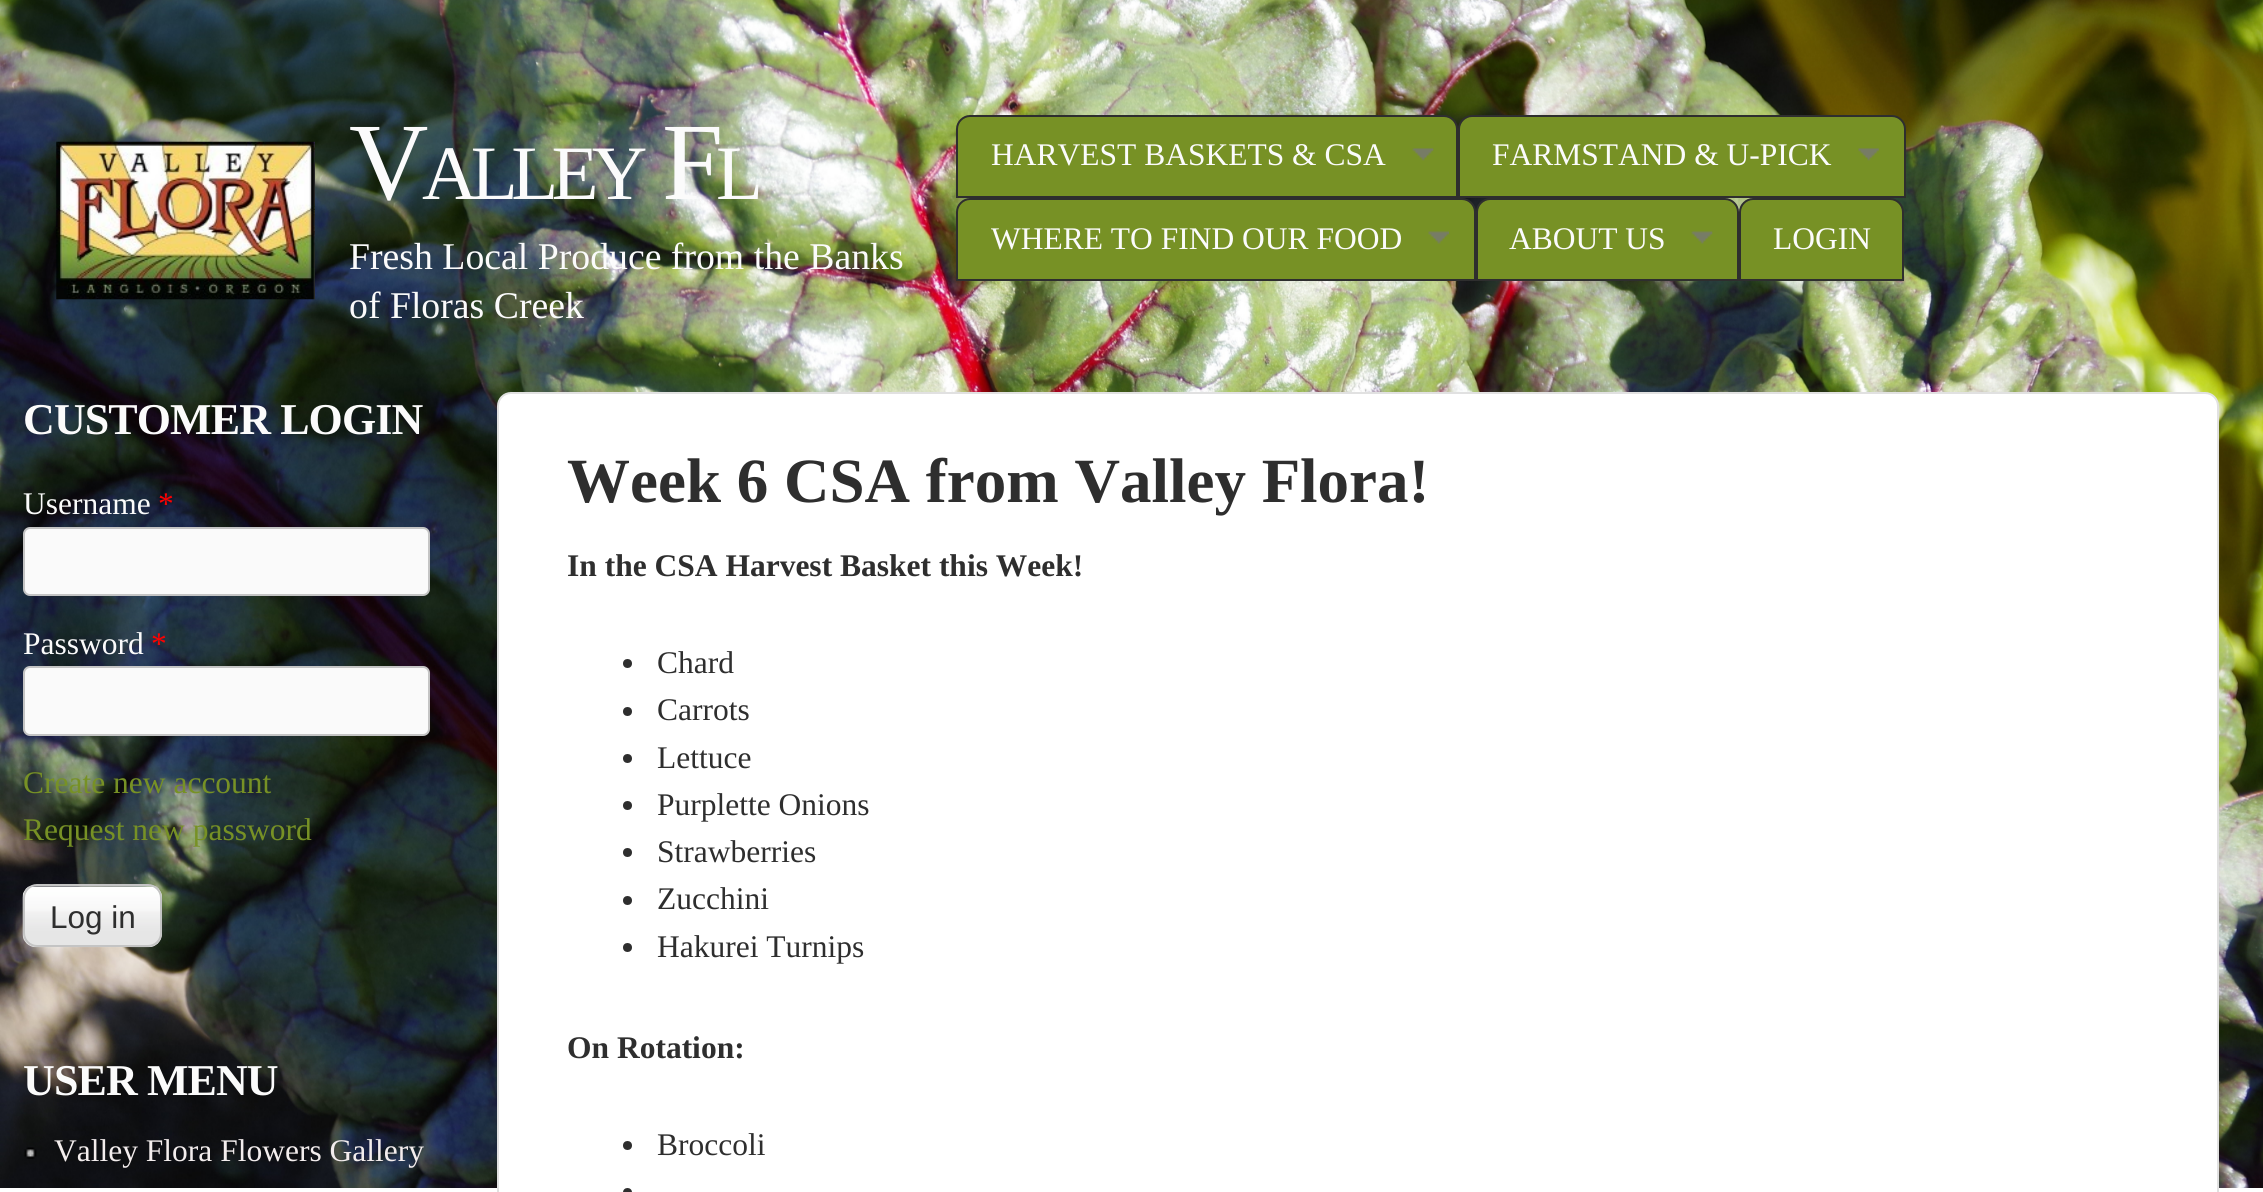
#include <cairo.h>
#include <math.h>
#include <stddef.h>


static void rgb(cairo_t *cr, int r, int g, int b)
{
	cairo_set_source_rgb(cr, r / 255.0, g / 255.0, b / 255.0);
}

static void face(cairo_t *cr, const char *family, double size, int italic, int bold)
{
	cairo_select_font_face(cr, family, italic ? CAIRO_FONT_SLANT_ITALIC : CAIRO_FONT_SLANT_NORMAL,
		bold ? CAIRO_FONT_WEIGHT_BOLD : CAIRO_FONT_WEIGHT_NORMAL);
	cairo_set_font_size(cr, size);
}

static void label(cairo_t *cr, double x, double y, const char *s)
{
	cairo_move_to(cr, x, y);
	cairo_show_text(cr, s);
}

static void tracked(cairo_t *cr, double x, double y, const char *s, double letter, double word)
{
	cairo_move_to(cr, x, y);
	while (*s) {
		char ch[5] = {0};
		int n = 0;
		do ch[n++] = *s++; while ((*s & 0xC0) == 0x80);
		cairo_show_text(cr, ch);
		cairo_rel_move_to(cr, letter + word * (*ch == ' '), 0);
	}
}

static void rrect(cairo_t *cr, double x, double y, double w, double h, double r)
{
	cairo_new_sub_path(cr);
	cairo_arc(cr, x + w - r, y + h - r, r, 0, M_PI / 2);
	cairo_arc(cr, x + r, y + h - r, r, M_PI / 2, M_PI);
	cairo_arc(cr, x + r, y + r, r, M_PI, 1.5 * M_PI);
	cairo_arc(cr, x + w - r, y + r, r, 1.5 * M_PI, 2 * M_PI);
	cairo_close_path(cr);
}

static void image(cairo_t *cr, const char *path, double x, double y, double w, double h)
{
	cairo_surface_t *image = cairo_image_surface_create_from_png(path);
	cairo_save(cr);
	cairo_set_source_surface(cr, image, x, y);
	cairo_rectangle(cr, x, y, w, h);
	cairo_fill(cr);
	cairo_restore(cr);
	cairo_surface_destroy(image);
}

static void draw(cairo_t *cr) {
	rgb(cr, 255, 255, 255);
	cairo_paint(cr);
	image(cr, "image0.png", 0, 0, 2263, 1188);
	image(cr, "image1.png", 56, 141, 259, 159);
	face(cr, "Liberation Serif", 110, 0, 0);
	rgb(cr, 251, 251, 251);
	tracked(cr, 349, 199, "V", -6.75, 0);
	face(cr, "Liberation Serif", 77, 0, 0);
	tracked(cr, 422, 199, "ALLEY", -6.75, 0);
	face(cr, "Liberation Serif", 110, 0, 0);
	tracked(cr, 662, 199, "F", -6.75, 0);
	face(cr, "Liberation Serif", 77, 0, 0);
	tracked(cr, 716, 199, "L", -6.75, 0);
	face(cr, "Liberation Serif", 37.75, 0, 0);
	label(cr, 349, 269, "Fresh Local Produce from the Banks");
	label(cr, 349, 318, "of Floras Creek");
	rgb(cr, 119, 145, 37);
	cairo_new_path(cr);
	cairo_move_to(cr, 970, 116);
	cairo_line_to(cr, 1444, 116);
	cairo_curve_to(cr, 1451, 116, 1457, 122, 1457, 129);
	cairo_line_to(cr, 1457, 197);
	cairo_line_to(cr, 957, 197);
	cairo_line_to(cr, 957, 129);
	cairo_curve_to(cr, 957, 122, 963, 116, 970, 116);
	cairo_close_path(cr);
	cairo_fill_preserve(cr);
	rgb(cr, 46, 46, 46);
	cairo_stroke(cr);
	face(cr, "Liberation Serif", 31.5, 0, 0);
	rgb(cr, 251, 251, 251);
	label(cr, 991, 165, "HARVEST BASKETS & CSA");
	image(cr, "image2.png", 1412, 148, 22, 13);
	rgb(cr, 119, 145, 37);
	cairo_new_path(cr);
	cairo_move_to(cr, 1472, 116);
	cairo_line_to(cr, 1892, 116);
	cairo_curve_to(cr, 1899, 116, 1905, 122, 1905, 129);
	cairo_line_to(cr, 1905, 197);
	cairo_line_to(cr, 1459, 197);
	cairo_line_to(cr, 1459, 129);
	cairo_curve_to(cr, 1459, 122, 1465, 116, 1472, 116);
	cairo_close_path(cr);
	cairo_fill_preserve(cr);
	rgb(cr, 46, 46, 46);
	cairo_stroke(cr);
	rgb(cr, 251, 251, 251);
	label(cr, 1492, 165, "FARMSTAND & U-PICK");
	image(cr, "image3.png", 1858, 148, 21, 13);
	rgb(cr, 119, 145, 37);
	cairo_new_path(cr);
	cairo_move_to(cr, 970, 199);
	cairo_line_to(cr, 1462, 199);
	cairo_curve_to(cr, 1469, 199, 1475, 205, 1475, 212);
	cairo_line_to(cr, 1475, 280);
	cairo_line_to(cr, 957, 280);
	cairo_line_to(cr, 957, 212);
	cairo_curve_to(cr, 957, 205, 963, 199, 970, 199);
	cairo_close_path(cr);
	cairo_fill_preserve(cr);
	rgb(cr, 46, 46, 46);
	cairo_stroke(cr);
	rgb(cr, 251, 251, 251);
	label(cr, 991, 249, "WHERE TO FIND OUR FOOD");
	image(cr, "image4.png", 1428, 231, 21, 13);
	rgb(cr, 119, 145, 37);
	cairo_new_path(cr);
	cairo_move_to(cr, 1490, 199);
	cairo_line_to(cr, 1725, 199);
	cairo_curve_to(cr, 1732, 199, 1738, 205, 1738, 212);
	cairo_line_to(cr, 1738, 280);
	cairo_line_to(cr, 1477, 280);
	cairo_line_to(cr, 1477, 212);
	cairo_curve_to(cr, 1477, 205, 1483, 199, 1490, 199);
	cairo_close_path(cr);
	cairo_fill_preserve(cr);
	rgb(cr, 46, 46, 46);
	cairo_stroke(cr);
	rgb(cr, 251, 251, 251);
	label(cr, 1509, 249, "ABOUT US");
	image(cr, "image5.png", 1691, 231, 22, 13);
	rgb(cr, 119, 145, 37);
	cairo_new_path(cr);
	cairo_move_to(cr, 1753, 199);
	cairo_line_to(cr, 1890, 199);
	cairo_curve_to(cr, 1897, 199, 1903, 205, 1903, 212);
	cairo_line_to(cr, 1903, 280);
	cairo_line_to(cr, 1740, 280);
	cairo_line_to(cr, 1740, 212);
	cairo_curve_to(cr, 1740, 205, 1746, 199, 1753, 199);
	cairo_close_path(cr);
	cairo_fill_preserve(cr);
	rgb(cr, 46, 46, 46);
	cairo_stroke(cr);
	rgb(cr, 251, 251, 251);
	label(cr, 1773, 249, "LOGIN");
	face(cr, "Liberation Serif", 44, 0, 1);
	tracked(cr, 23, 434, "CUSTOMER LOGIN", -0.9, 0);
	face(cr, "Liberation Serif", 31.5, 0, 0);
	label(cr, 23, 514, "Username");
	rgb(cr, 255, 0, 0);
	label(cr, 158, 514, "*");
	rgb(cr, 250, 250, 250);
	rrect(cr, 24, 528, 405, 67, 6);
	cairo_fill_preserve(cr);
	rgb(cr, 196, 196, 196);
	cairo_stroke(cr);
	rgb(cr, 251, 251, 251);
	label(cr, 23, 654, "Password");
	rgb(cr, 255, 0, 0);
	label(cr, 151, 654, "*");
	rgb(cr, 250, 250, 250);
	rrect(cr, 24, 667, 405, 68, 6);
	cairo_fill_preserve(cr);
	rgb(cr, 196, 196, 196);
	cairo_stroke(cr);
	rgb(cr, 119, 145, 37);
	label(cr, 23, 793, "Create new account");
	label(cr, 23, 840, "Request new password");
	image(cr, "image6.png", 22, 886, 140, 62);
	rrect(cr, 24, 885, 137, 61, 13);
	rgb(cr, 196, 196, 196);
	cairo_stroke(cr);
	face(cr, "Liberation Sans", 31.5, 0, 0);
	rgb(cr, 46, 46, 46);
	label(cr, 50, 928, "Log in");
	face(cr, "Liberation Serif", 44, 0, 1);
	rgb(cr, 251, 251, 251);
	tracked(cr, 23, 1095, "USER MENU", -0.9, 0);
	image(cr, "image7.png", 24, 1147, 13, 12);
	face(cr, "Liberation Serif", 31.5, 0, 0);
	rgb(cr, 243, 237, 237);
	label(cr, 54, 1161, "Valley Flora Flowers Gallery");
	rgb(cr, 255, 255, 255);
	rrect(cr, 498, 393, 1720, 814, 13);
	cairo_fill_preserve(cr);
	rgb(cr, 225, 225, 225);
	cairo_stroke(cr);
	face(cr, "Liberation Serif", 63, 0, 1);
	rgb(cr, 46, 46, 46);
	label(cr, 567, 502, "Week 6 CSA from Valley Flora!");
	face(cr, "Liberation Serif", 31.5, 0, 1);
	label(cr, 567, 576, "In the CSA Harvest Basket this Week!");
	cairo_new_path(cr);
	cairo_arc(cr, 627.5, 663.5, 4.5, 0, 2 * M_PI);
	cairo_fill(cr);
	face(cr, "Liberation Serif", 31.5, 0, 0);
	label(cr, 657, 673, "Chard");
	cairo_new_path(cr);
	cairo_arc(cr, 627.5, 711.5, 4.5, 0, 2 * M_PI);
	cairo_fill(cr);
	label(cr, 657, 720, "Carrots");
	cairo_new_path(cr);
	cairo_arc(cr, 627.5, 758.5, 4.5, 0, 2 * M_PI);
	cairo_fill(cr);
	label(cr, 657, 768, "Lettuce");
	cairo_new_path(cr);
	cairo_arc(cr, 627.5, 805.5, 4.5, 0, 2 * M_PI);
	cairo_fill(cr);
	label(cr, 657, 815, "Purplette Onions");
	cairo_new_path(cr);
	cairo_arc(cr, 627.5, 852.5, 4.5, 0, 2 * M_PI);
	cairo_fill(cr);
	label(cr, 657, 862, "Strawberries");
	cairo_new_path(cr);
	cairo_arc(cr, 627.5, 900.5, 4.5, 0, 2 * M_PI);
	cairo_fill(cr);
	label(cr, 657, 909, "Zucchini");
	cairo_new_path(cr);
	cairo_arc(cr, 627.5, 947.5, 4.5, 0, 2 * M_PI);
	cairo_fill(cr);
	label(cr, 657, 957, "Hakurei Turnips");
	face(cr, "Liberation Serif", 31.5, 0, 1);
	label(cr, 567, 1058, "On Rotation:");
	cairo_new_path(cr);
	cairo_arc(cr, 627.5, 1145.5, 4.5, 0, 2 * M_PI);
	cairo_fill(cr);
	face(cr, "Liberation Serif", 31.5, 0, 0);
	label(cr, 657, 1155, "Broccoli");
	cairo_new_path(cr);
	cairo_arc(cr, 627.5, 1192.5, 4.5, 0, 2 * M_PI);
	cairo_fill(cr);
}

int main(void) {
	cairo_surface_t *surface = cairo_image_surface_create(CAIRO_FORMAT_RGB24, 2263, 1192);
	cairo_t *cr = cairo_create(surface);
	cairo_font_options_t *options = cairo_font_options_create();
	cairo_font_options_set_hint_metrics(options, CAIRO_HINT_METRICS_OFF);
	cairo_font_options_set_hint_style(options, CAIRO_HINT_STYLE_NONE);
	cairo_set_font_options(cr, options);
	cairo_set_miter_limit(cr, 4);
	draw(cr);
	cairo_surface_write_to_png(surface, "render.png");
	cairo_font_options_destroy(options);
	cairo_destroy(cr);
	cairo_surface_destroy(surface);
	return 0;
}
